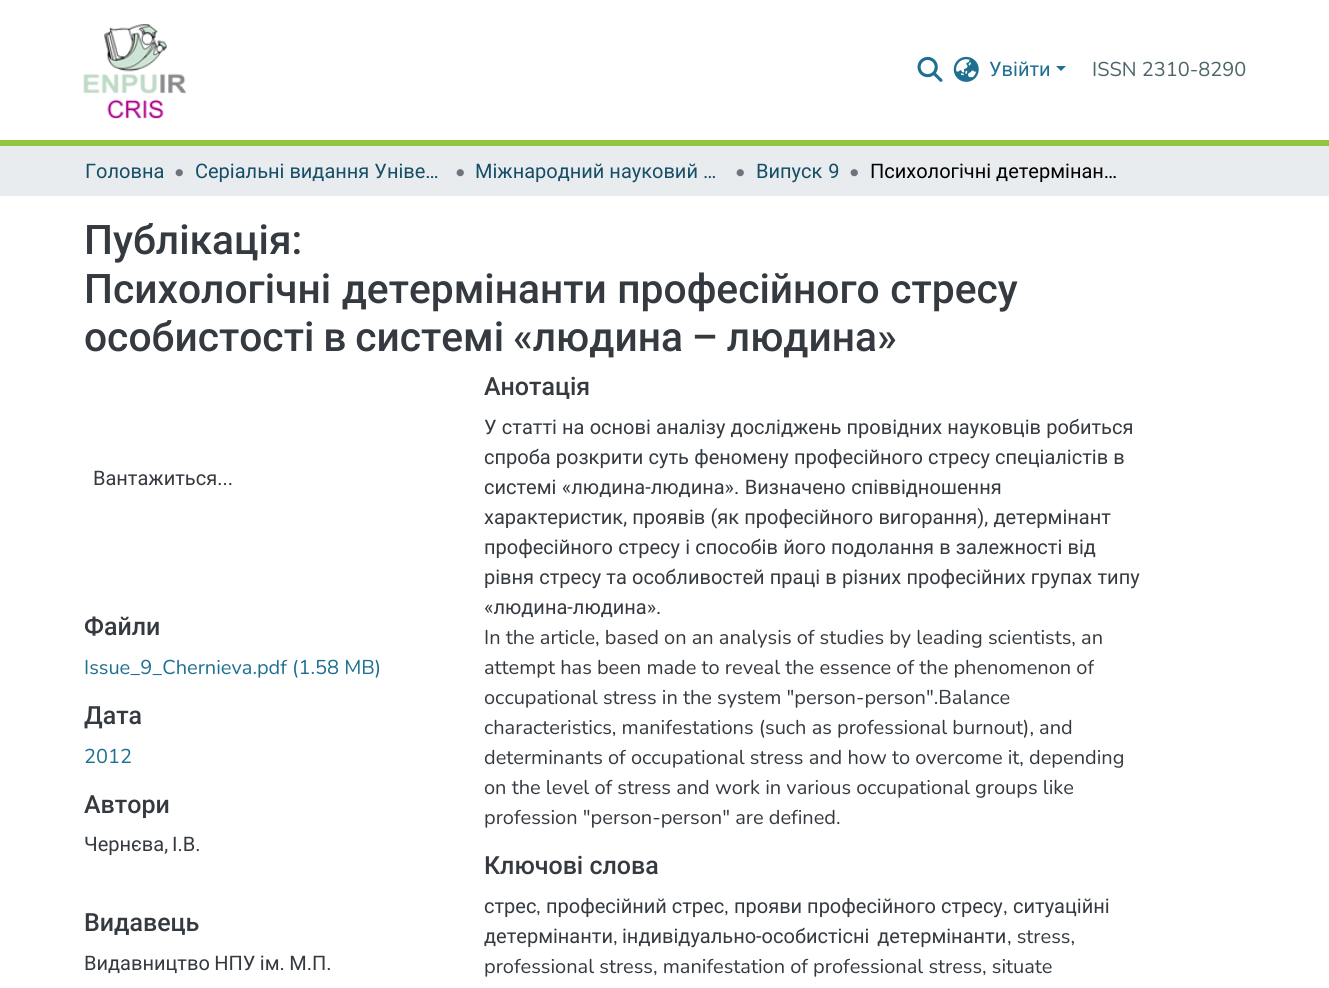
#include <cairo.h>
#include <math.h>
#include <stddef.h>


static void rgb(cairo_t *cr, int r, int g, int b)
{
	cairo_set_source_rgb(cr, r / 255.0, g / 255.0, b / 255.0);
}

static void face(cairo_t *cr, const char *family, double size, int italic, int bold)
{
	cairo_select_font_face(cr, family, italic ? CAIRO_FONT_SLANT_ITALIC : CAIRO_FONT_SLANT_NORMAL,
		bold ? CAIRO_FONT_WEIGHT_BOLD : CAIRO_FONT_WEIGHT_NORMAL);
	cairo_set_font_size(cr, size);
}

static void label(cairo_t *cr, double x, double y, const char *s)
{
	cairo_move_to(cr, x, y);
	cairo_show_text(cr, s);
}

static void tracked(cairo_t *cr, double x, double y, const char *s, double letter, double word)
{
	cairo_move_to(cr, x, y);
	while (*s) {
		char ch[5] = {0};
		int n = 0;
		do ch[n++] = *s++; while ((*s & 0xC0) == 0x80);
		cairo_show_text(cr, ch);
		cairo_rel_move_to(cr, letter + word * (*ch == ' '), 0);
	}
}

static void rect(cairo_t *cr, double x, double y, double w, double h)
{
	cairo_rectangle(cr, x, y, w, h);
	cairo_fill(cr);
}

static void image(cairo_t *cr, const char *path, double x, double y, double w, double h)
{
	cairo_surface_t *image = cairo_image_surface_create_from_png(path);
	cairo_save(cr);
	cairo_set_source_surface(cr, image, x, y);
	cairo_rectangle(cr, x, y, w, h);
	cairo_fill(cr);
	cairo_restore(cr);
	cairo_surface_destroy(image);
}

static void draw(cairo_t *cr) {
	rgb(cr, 255, 255, 255);
	cairo_paint(cr);
	rgb(cr, 146, 198, 66);
	rect(cr, 0, 140, 1329, 6);
	image(cr, "image0.png", 83, 24, 104, 95);
	image(cr, "image1.png", 917, 56, 26, 26);
	image(cr, "image2.png", 953, 56, 26, 26);
	face(cr, "Roboto", 20, 0, 0);
	rgb(cr, 30, 111, 144);
	label(cr, 989, 76, "Увійти");
	cairo_new_path(cr);
	cairo_move_to(cr, 1056, 66);
	cairo_line_to(cr, 1066, 66);
	cairo_line_to(cr, 1061, 71);
	cairo_close_path(cr);
	cairo_fill(cr);
	face(cr, "Nunito", 20, 0, 0);
	rgb(cr, 75, 101, 105);
	label(cr, 1092, 76, "ISSN 2310-8290");
	rgb(cr, 233, 236, 239);
	rect(cr, 0, 146, 1329, 50);
	face(cr, "Roboto", 20, 0, 0);
	rgb(cr, 21, 78, 102);
	label(cr, 85, 178, "Головна");
	face(cr, "Nunito", 20, 0, 0);
	rgb(cr, 108, 117, 125);
	label(cr, 174, 178, "•");
	face(cr, "Roboto", 20, 0, 0);
	rgb(cr, 21, 78, 102);
	label(cr, 195, 178, "Серіальні видання Уніве…");
	face(cr, "Nunito", 20, 0, 0);
	rgb(cr, 108, 117, 125);
	label(cr, 455, 178, "•");
	face(cr, "Roboto", 20, 0, 0);
	rgb(cr, 21, 78, 102);
	label(cr, 475, 178, "Міжнародний науковий …");
	face(cr, "Nunito", 20, 0, 0);
	rgb(cr, 108, 117, 125);
	label(cr, 735, 178, "•");
	face(cr, "Roboto", 20, 0, 0);
	rgb(cr, 21, 78, 102);
	tracked(cr, 756, 178, "Випуск 9", 0, 1);
	face(cr, "Nunito", 20, 0, 0);
	rgb(cr, 108, 117, 125);
	label(cr, 849, 178, "•");
	face(cr, "Roboto", 20, 0, 0);
	rgb(cr, 0, 0, 0);
	label(cr, 870, 178, "Психологічні детермінан…");
	face(cr, "Roboto Medium", 40.75, 0, 0);
	rgb(cr, 52, 58, 64);
	label(cr, 84, 254, "Публікація:");
	tracked(cr, 84, 303, "Психологічні детермінанти професійного стресу", 0, 0.5);
	tracked(cr, 84, 351, "особистості в системі «людина – людина»", 0, -1.25);
	face(cr, "Roboto", 20, 0, 0);
	label(cr, 93, 485, "Вантажиться...");
	face(cr, "Roboto Medium", 25, 0, 0);
	label(cr, 84, 635, "Файли");
	face(cr, "Nunito", 20, 0, 0);
	rgb(cr, 30, 111, 144);
	label(cr, 84, 674, "Issue_9_Chernieva.pdf (1.58 MB)");
	face(cr, "Roboto Medium", 25, 0, 0);
	rgb(cr, 52, 58, 64);
	label(cr, 84, 724, "Дата");
	face(cr, "Nunito", 20, 0, 0);
	rgb(cr, 30, 111, 144);
	label(cr, 84, 763, "2012");
	face(cr, "Roboto Medium", 25, 0, 0);
	rgb(cr, 52, 58, 64);
	label(cr, 84, 813, "Автори");
	face(cr, "Roboto", 20, 0, 0);
	tracked(cr, 84, 851, "Чернєва, І.В.", 0, -1);
	face(cr, "Roboto Medium", 25, 0, 0);
	label(cr, 84, 931, "Видавець");
	face(cr, "Roboto", 20, 0, 0);
	tracked(cr, 84, 970, "Видавництво НПУ ім. М.П.", 0, -0.5);
	face(cr, "Roboto Medium", 25, 0, 0);
	label(cr, 484, 395, "Анотація");
	face(cr, "Roboto", 20, 0, 0);
	tracked(cr, 484, 434, "У статті на основі аналізу досліджень провідних науковців робиться", 0, 0.25);
	tracked(cr, 484, 464, "спроба розкрити суть феномену професійного стресу спеціалістів в", 0, 0.25);
	tracked(cr, 484, 494, "системі «людина-людина». Визначено співвідношення", 0, 0.5);
	tracked(cr, 484, 524, "характеристик, проявів (як професійного вигорання), детермінант", 0, 0.25);
	tracked(cr, 484, 554, "професійного стресу і способів його подолання в залежності від", 0, 0.25);
	tracked(cr, 484, 584, "рівня стресу та особливостей праці в різних професійних групах типу", 0, 0.25);
	label(cr, 484, 614, "«людина-людина».");
	face(cr, "Nunito", 20, 0, 0);
	label(cr, 484, 644, "In the article, based on an analysis of studies by leading scientists, an");
	label(cr, 484, 674, "attempt has been made to reveal the essence of the phenomenon of");
	label(cr, 484, 704, "occupational stress in the system \"person-person\".Balance");
	label(cr, 484, 734, "characteristics, manifestations (such as professional burnout), and");
	label(cr, 484, 764, "determinants of occupational stress and how to overcome it, depending");
	label(cr, 484, 794, "on the level of stress and work in various occupational groups like");
	label(cr, 484, 824, "profession \"person-person\" are defined.");
	face(cr, "Roboto Medium", 25, 0, 0);
	label(cr, 484, 874, "Ключові слова");
	face(cr, "Roboto", 20, 0, 0);
	label(cr, 484, 913, "стрес");
	face(cr, "Nunito", 20, 0, 0);
	label(cr, 536, 913, ",");
	face(cr, "Roboto", 20, 0, 0);
	label(cr, 546, 913, "професійний стрес");
	face(cr, "Nunito", 20, 0, 0);
	label(cr, 724, 913, ",");
	face(cr, "Roboto", 20, 0, 0);
	label(cr, 734, 913, "прояви професійного стресу");
	face(cr, "Nunito", 20, 0, 0);
	label(cr, 1003, 913, ",");
	face(cr, "Roboto", 20, 0, 0);
	label(cr, 1013, 913, "ситуаційні");
	label(cr, 484, 943, "детермінанти");
	face(cr, "Nunito", 20, 0, 0);
	label(cr, 613, 943, ",");
	face(cr, "Roboto", 20, 0, 0);
	tracked(cr, 622, 943, "індивідуально-особистісні детермінанти", 0, 3);
	face(cr, "Nunito", 20, 0, 0);
	label(cr, 1007, 943, ", stress,");
	label(cr, 484, 973, "professional stress, manifestation of professional stress, situate");
}

int main(void) {
	cairo_surface_t *surface = cairo_image_surface_create(CAIRO_FORMAT_RGB24, 1329, 988);
	cairo_t *cr = cairo_create(surface);
	cairo_font_options_t *options = cairo_font_options_create();
	cairo_font_options_set_hint_metrics(options, CAIRO_HINT_METRICS_OFF);
	cairo_font_options_set_hint_style(options, CAIRO_HINT_STYLE_NONE);
	cairo_set_font_options(cr, options);
	cairo_set_miter_limit(cr, 4);
	draw(cr);
	cairo_surface_write_to_png(surface, "render.png");
	cairo_font_options_destroy(options);
	cairo_destroy(cr);
	cairo_surface_destroy(surface);
	return 0;
}
